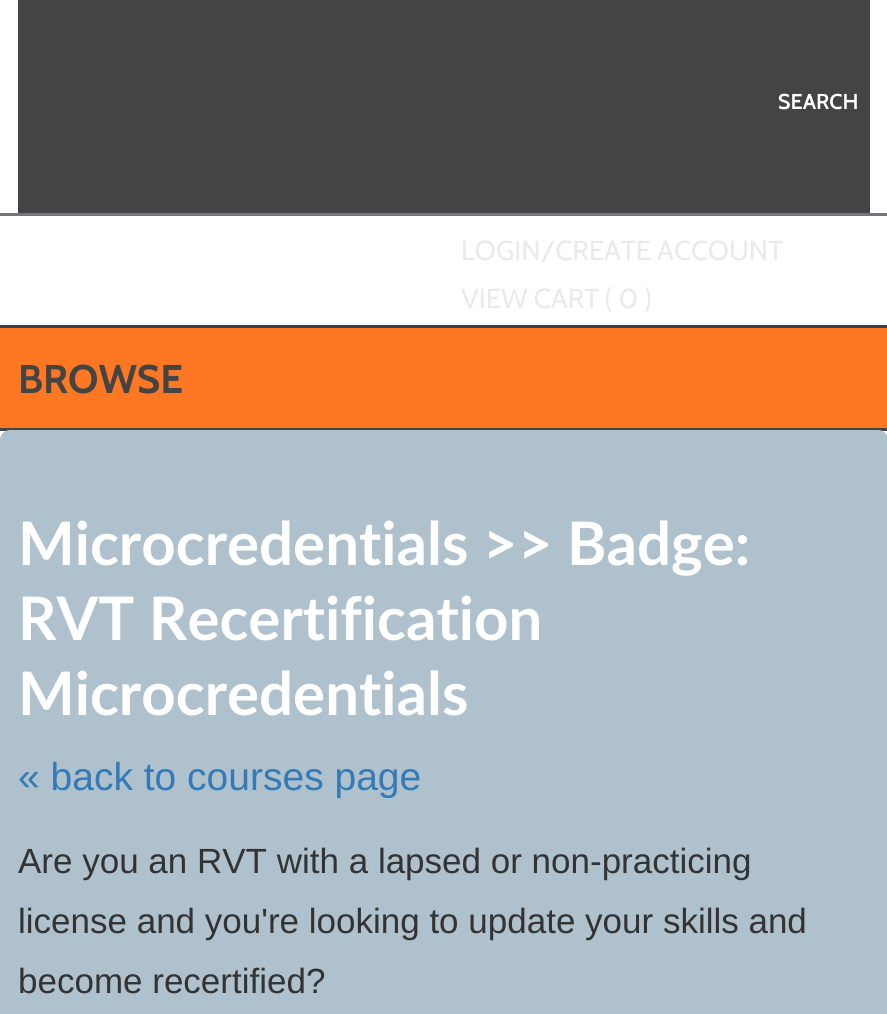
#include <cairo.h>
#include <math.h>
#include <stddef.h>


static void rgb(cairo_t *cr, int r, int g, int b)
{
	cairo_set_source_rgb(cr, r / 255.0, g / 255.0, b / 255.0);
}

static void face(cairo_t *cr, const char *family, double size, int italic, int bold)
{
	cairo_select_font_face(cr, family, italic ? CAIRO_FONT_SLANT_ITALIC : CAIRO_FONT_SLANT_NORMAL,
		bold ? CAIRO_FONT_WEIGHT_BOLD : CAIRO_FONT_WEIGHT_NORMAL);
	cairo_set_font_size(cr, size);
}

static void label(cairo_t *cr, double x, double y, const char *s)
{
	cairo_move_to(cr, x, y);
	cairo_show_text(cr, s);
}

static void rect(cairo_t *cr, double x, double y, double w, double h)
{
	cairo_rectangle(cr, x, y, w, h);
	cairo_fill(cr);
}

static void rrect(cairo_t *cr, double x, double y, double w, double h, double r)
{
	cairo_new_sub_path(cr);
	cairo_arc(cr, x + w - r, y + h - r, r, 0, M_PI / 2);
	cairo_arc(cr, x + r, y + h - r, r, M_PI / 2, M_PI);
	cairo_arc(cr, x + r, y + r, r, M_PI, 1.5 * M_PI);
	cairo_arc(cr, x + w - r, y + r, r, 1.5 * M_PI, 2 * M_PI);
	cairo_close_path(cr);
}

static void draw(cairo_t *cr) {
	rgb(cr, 255, 255, 255);
	cairo_paint(cr);
	rgb(cr, 68, 68, 68);
	rect(cr, 18, 0, 852, 213);
	face(cr, "Cabin SemiBold", 21.5, 0, 0);
	rgb(cr, 255, 255, 255);
	label(cr, 778, 109, "SEARCH");
	rgb(cr, 112, 120, 124);
	rect(cr, 0, 213, 887, 3);
	rgb(cr, 59, 65, 68);
	rect(cr, 0, 325, 887, 3);
	face(cr, "Cabin", 27.5, 0, 0);
	rgb(cr, 234, 234, 234);
	label(cr, 461, 260, "LOGIN/CREATE ACCOUNT");
	label(cr, 461, 308, "VIEW CART ( 0 )");
	rgb(cr, 254, 119, 34);
	rect(cr, 0, 328, 887, 100);
	rgb(cr, 68, 68, 68);
	rect(cr, 0, 428, 887, 3);
	face(cr, "Cabin", 40, 0, 1);
	label(cr, 18, 393, "BROWSE");
	rgb(cr, 175, 193, 204);
	rrect(cr, 0, 430, 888, 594, 10);
	cairo_fill(cr);
	face(cr, "Lato", 60, 0, 1);
	rgb(cr, 255, 255, 255);
	label(cr, 18, 565, "Microcredentials >> Badge:");
	label(cr, 18, 640, "RVT Recertification");
	label(cr, 18, 715, "Microcredentials");
	face(cr, "Liberation Sans", 39, 0, 0);
	rgb(cr, 51, 122, 183);
	label(cr, 18, 790, "« back to courses page");
	face(cr, "Liberation Sans", 35, 0, 0);
	rgb(cr, 51, 51, 51);
	label(cr, 18, 873, "Are you an RVT with a lapsed or non-practicing");
	label(cr, 18, 933, "license and you're looking to update your skills and");
	label(cr, 18, 993, "become recertified?");
}

int main(void) {
	cairo_surface_t *surface = cairo_image_surface_create(CAIRO_FORMAT_RGB24, 887, 1014);
	cairo_t *cr = cairo_create(surface);
	cairo_font_options_t *options = cairo_font_options_create();
	cairo_font_options_set_hint_metrics(options, CAIRO_HINT_METRICS_OFF);
	cairo_font_options_set_hint_style(options, CAIRO_HINT_STYLE_NONE);
	cairo_set_font_options(cr, options);
	cairo_set_miter_limit(cr, 4);
	draw(cr);
	cairo_surface_write_to_png(surface, "render.png");
	cairo_font_options_destroy(options);
	cairo_destroy(cr);
	cairo_surface_destroy(surface);
	return 0;
}
